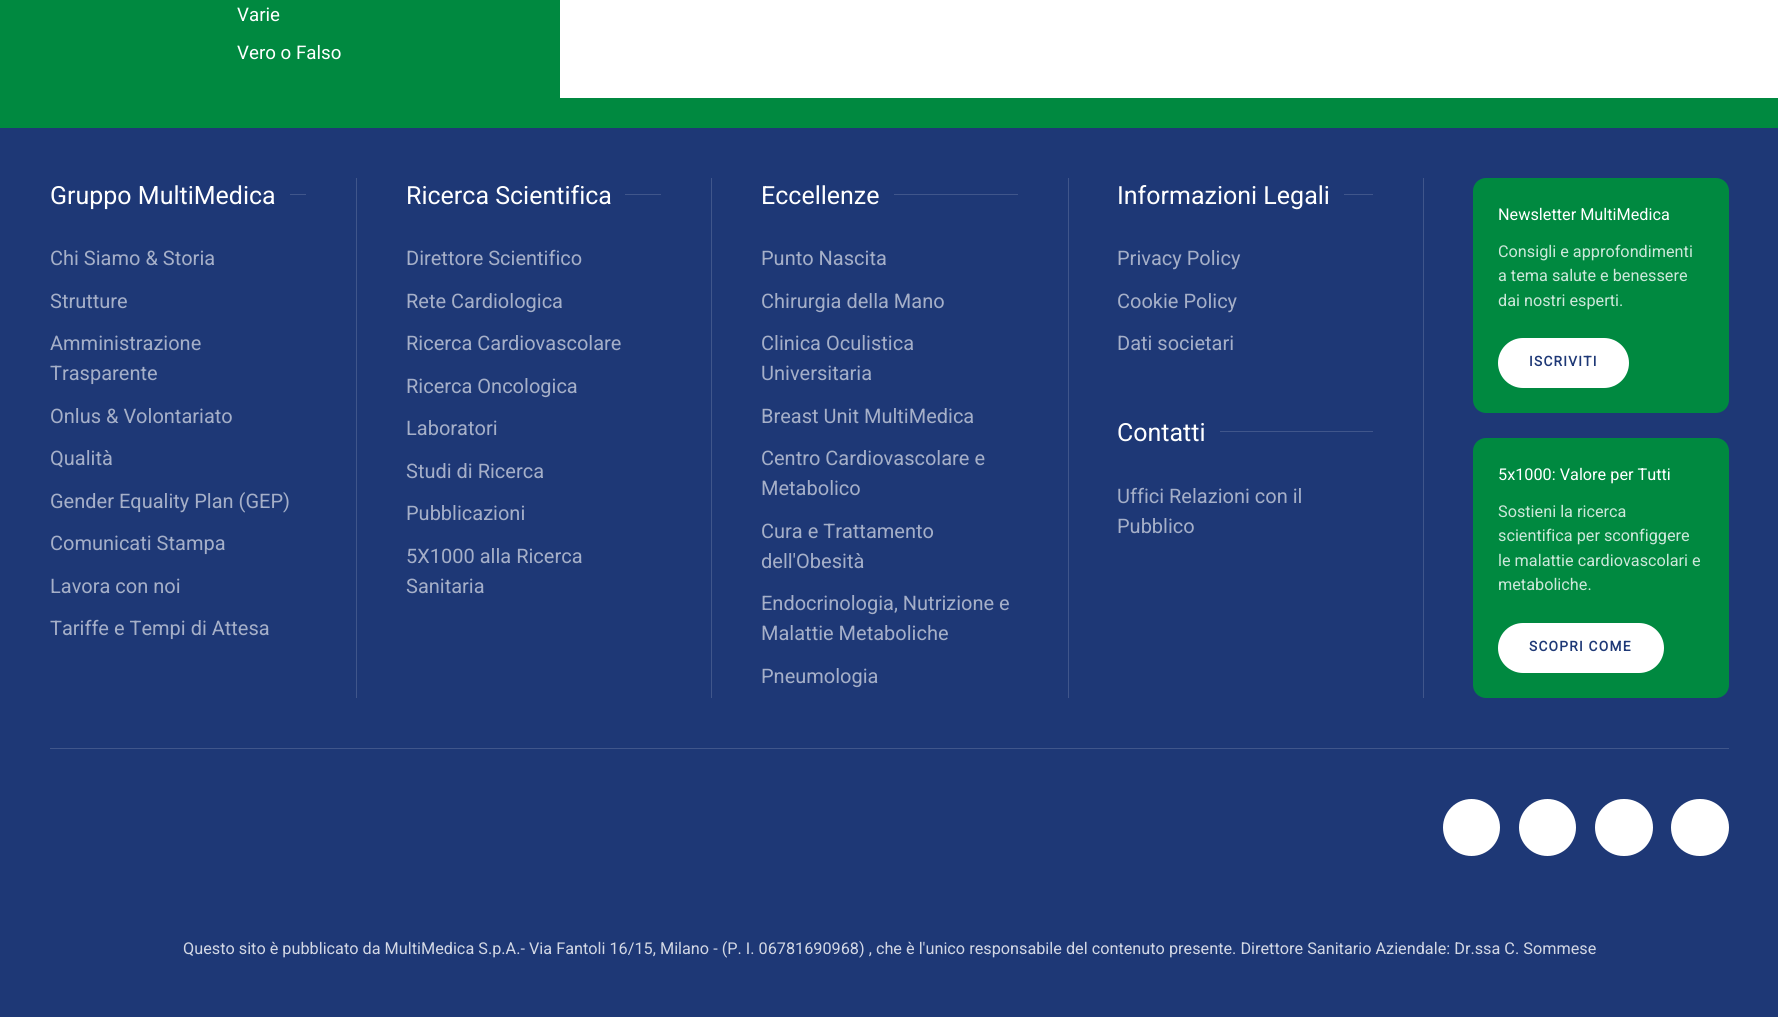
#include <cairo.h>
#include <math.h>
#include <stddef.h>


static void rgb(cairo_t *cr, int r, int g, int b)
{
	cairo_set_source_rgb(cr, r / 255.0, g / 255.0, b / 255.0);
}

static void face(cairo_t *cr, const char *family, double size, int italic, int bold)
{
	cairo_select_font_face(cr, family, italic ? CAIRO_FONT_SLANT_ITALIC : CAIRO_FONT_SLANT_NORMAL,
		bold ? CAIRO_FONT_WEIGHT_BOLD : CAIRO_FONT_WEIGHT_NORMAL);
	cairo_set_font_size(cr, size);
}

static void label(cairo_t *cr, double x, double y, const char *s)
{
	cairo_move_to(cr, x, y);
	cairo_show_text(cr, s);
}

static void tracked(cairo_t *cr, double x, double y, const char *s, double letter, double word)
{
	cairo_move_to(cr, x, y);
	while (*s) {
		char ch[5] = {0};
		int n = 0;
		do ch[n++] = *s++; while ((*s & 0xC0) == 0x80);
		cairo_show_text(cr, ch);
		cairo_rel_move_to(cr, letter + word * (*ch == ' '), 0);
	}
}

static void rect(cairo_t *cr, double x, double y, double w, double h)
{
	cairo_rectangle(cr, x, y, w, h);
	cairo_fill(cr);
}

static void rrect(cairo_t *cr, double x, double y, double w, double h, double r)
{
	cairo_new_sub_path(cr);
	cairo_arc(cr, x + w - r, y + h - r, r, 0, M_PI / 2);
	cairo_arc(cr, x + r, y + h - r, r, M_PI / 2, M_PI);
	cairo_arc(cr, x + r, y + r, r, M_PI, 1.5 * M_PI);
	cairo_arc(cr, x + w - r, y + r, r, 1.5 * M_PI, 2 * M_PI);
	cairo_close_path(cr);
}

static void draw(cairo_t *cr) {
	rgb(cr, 255, 255, 255);
	cairo_paint(cr);
	rgb(cr, 30, 56, 118);
	rect(cr, 0, 128, 1778, 889);
	rgb(cr, 0, 137, 64);
	rect(cr, 0, 0, 560, 98);
	face(cr, "Roboto", 18.75, 0, 0);
	rgb(cr, 255, 255, 255);
	label(cr, 237, 21, "Varie");
	label(cr, 237, 59, "Vero o Falso");
	rgb(cr, 0, 137, 64);
	rect(cr, 0, 98, 1778, 30);
	face(cr, "Roboto", 25, 0, 0);
	rgb(cr, 255, 255, 255);
	label(cr, 50, 204, "Gruppo MultiMedica");
	rgb(cr, 64, 86, 139);
	rect(cr, 290, 194, 16, 1);
	face(cr, "Roboto", 20, 0, 0);
	rgb(cr, 165, 175, 200);
	label(cr, 50, 265, "Chi Siamo & Storia");
	label(cr, 50, 308, "Strutture");
	label(cr, 50, 350, "Amministrazione");
	label(cr, 50, 380, "Trasparente");
	label(cr, 50, 423, "Onlus & Volontariato");
	label(cr, 50, 465, "Qualità");
	label(cr, 50, 508, "Gender Equality Plan (GEP)");
	label(cr, 50, 550, "Comunicati Stampa");
	label(cr, 50, 593, "Lavora con noi");
	label(cr, 50, 635, "Tariffe e Tempi di Attesa");
	rgb(cr, 64, 86, 139);
	rect(cr, 356, 178, 1, 520);
	face(cr, "Roboto", 25, 0, 0);
	rgb(cr, 255, 255, 255);
	label(cr, 406, 204, "Ricerca Scientifica");
	rgb(cr, 64, 86, 139);
	rect(cr, 625, 194, 36, 1);
	face(cr, "Roboto", 20, 0, 0);
	rgb(cr, 165, 175, 200);
	label(cr, 406, 265, "Direttore Scientifico");
	label(cr, 406, 308, "Rete Cardiologica");
	label(cr, 406, 350, "Ricerca Cardiovascolare");
	label(cr, 406, 393, "Ricerca Oncologica");
	label(cr, 406, 435, "Laboratori");
	label(cr, 406, 478, "Studi di Ricerca");
	label(cr, 406, 520, "Pubblicazioni");
	label(cr, 406, 563, "5X1000 alla Ricerca");
	label(cr, 406, 593, "Sanitaria");
	rgb(cr, 64, 86, 139);
	rect(cr, 711, 178, 1, 520);
	face(cr, "Roboto", 25, 0, 0);
	rgb(cr, 255, 255, 255);
	label(cr, 761, 204, "Eccellenze");
	rgb(cr, 64, 86, 139);
	rect(cr, 894, 194, 124, 1);
	face(cr, "Roboto", 20, 0, 0);
	rgb(cr, 165, 175, 200);
	label(cr, 761, 265, "Punto Nascita");
	label(cr, 761, 308, "Chirurgia della Mano");
	label(cr, 761, 350, "Clinica Oculistica");
	label(cr, 761, 380, "Universitaria");
	label(cr, 761, 423, "Breast Unit MultiMedica");
	label(cr, 761, 465, "Centro Cardiovascolare e");
	label(cr, 761, 495, "Metabolico");
	label(cr, 761, 538, "Cura e Trattamento");
	label(cr, 761, 568, "dell'Obesità");
	label(cr, 761, 610, "Endocrinologia, Nutrizione e");
	label(cr, 761, 640, "Malattie Metaboliche");
	label(cr, 761, 683, "Pneumologia");
	rgb(cr, 64, 86, 139);
	rect(cr, 1068, 178, 1, 520);
	face(cr, "Roboto", 25, 0, 0);
	rgb(cr, 255, 255, 255);
	label(cr, 1117, 204, "Informazioni Legali");
	rgb(cr, 64, 86, 139);
	rect(cr, 1344, 194, 29, 1);
	face(cr, "Roboto", 20, 0, 0);
	rgb(cr, 165, 175, 200);
	label(cr, 1117, 265, "Privacy Policy");
	label(cr, 1117, 308, "Cookie Policy");
	label(cr, 1117, 350, "Dati societari");
	face(cr, "Roboto", 25, 0, 0);
	rgb(cr, 255, 255, 255);
	label(cr, 1117, 441, "Contatti");
	rgb(cr, 64, 86, 139);
	rect(cr, 1220, 431, 153, 1);
	face(cr, "Roboto", 20, 0, 0);
	rgb(cr, 165, 175, 200);
	label(cr, 1117, 503, "Uffici Relazioni con il");
	label(cr, 1117, 533, "Pubblico");
	rgb(cr, 64, 86, 139);
	rect(cr, 1423, 178, 1, 520);
	rgb(cr, 0, 137, 64);
	rrect(cr, 1473, 178, 256, 235, 13);
	cairo_fill(cr);
	face(cr, "Roboto", 16.25, 0, 0);
	rgb(cr, 255, 255, 255);
	label(cr, 1498, 220, "Newsletter MultiMedica");
	rgb(cr, 204, 231, 217);
	label(cr, 1498, 257, "Consigli e approfondimenti");
	label(cr, 1498, 281, "a tema salute e benessere");
	label(cr, 1498, 306, "dai nostri esperti.");
	rgb(cr, 255, 255, 255);
	rrect(cr, 1498, 338, 131, 50, 25);
	cairo_fill(cr);
	face(cr, "Roboto", 13.75, 0, 1);
	rgb(cr, 30, 56, 118);
	tracked(cr, 1529, 366, "ISCRIVITI", 1.25, 0);
	rgb(cr, 0, 137, 64);
	rrect(cr, 1473, 438, 256, 260, 13);
	cairo_fill(cr);
	face(cr, "Roboto", 16.25, 0, 0);
	rgb(cr, 255, 255, 255);
	label(cr, 1498, 480, "5x1000: Valore per Tutti");
	rgb(cr, 204, 231, 217);
	label(cr, 1498, 517, "Sostieni la ricerca");
	label(cr, 1498, 541, "scientifica per sconfiggere");
	label(cr, 1498, 566, "le malattie cardiovascolari e");
	label(cr, 1498, 590, "metaboliche.");
	rgb(cr, 255, 255, 255);
	rrect(cr, 1498, 623, 166, 50, 25);
	cairo_fill(cr);
	face(cr, "Roboto", 13.75, 0, 1);
	rgb(cr, 30, 56, 118);
	tracked(cr, 1529, 651, "SCOPRI COME", 1.25, 0);
	rgb(cr, 64, 86, 139);
	rect(cr, 50, 748, 1679, 1);
	rgb(cr, 255, 255, 255);
	cairo_new_path(cr);
	cairo_arc(cr, 1471.5, 827.5, 28.5, 0, 2 * M_PI);
	cairo_fill(cr);
	cairo_arc(cr, 1547.5, 827.5, 28.5, 0, 2 * M_PI);
	cairo_fill(cr);
	rrect(cr, 1595, 799, 58, 57, 28.5);
	cairo_fill(cr);
	rrect(cr, 1671, 799, 58, 57, 28.5);
	cairo_fill(cr);
	face(cr, "Roboto", 16.25, 0, 0);
	rgb(cr, 210, 215, 228);
	label(cr, 183, 954, "Questo sito è pubblicato da MultiMedica S.p.A.- Via Fantoli 16/15, Milano - (P. I. 06781690968) , che è l'unico responsabile del contenuto presente. Direttore Sanitario Aziendale: Dr.ssa C. Sommese");
}

int main(void) {
	cairo_surface_t *surface = cairo_image_surface_create(CAIRO_FORMAT_RGB24, 1778, 1017);
	cairo_t *cr = cairo_create(surface);
	cairo_font_options_t *options = cairo_font_options_create();
	cairo_font_options_set_hint_metrics(options, CAIRO_HINT_METRICS_OFF);
	cairo_font_options_set_hint_style(options, CAIRO_HINT_STYLE_NONE);
	cairo_set_font_options(cr, options);
	cairo_set_miter_limit(cr, 4);
	draw(cr);
	cairo_surface_write_to_png(surface, "render.png");
	cairo_font_options_destroy(options);
	cairo_destroy(cr);
	cairo_surface_destroy(surface);
	return 0;
}
